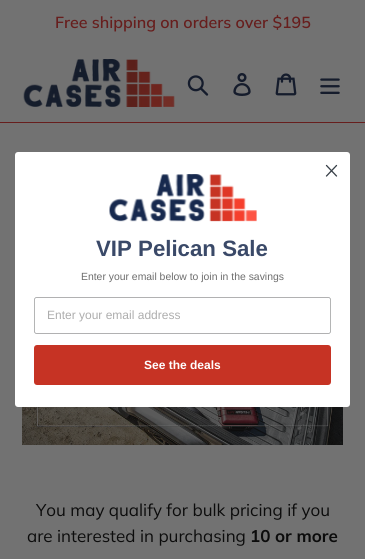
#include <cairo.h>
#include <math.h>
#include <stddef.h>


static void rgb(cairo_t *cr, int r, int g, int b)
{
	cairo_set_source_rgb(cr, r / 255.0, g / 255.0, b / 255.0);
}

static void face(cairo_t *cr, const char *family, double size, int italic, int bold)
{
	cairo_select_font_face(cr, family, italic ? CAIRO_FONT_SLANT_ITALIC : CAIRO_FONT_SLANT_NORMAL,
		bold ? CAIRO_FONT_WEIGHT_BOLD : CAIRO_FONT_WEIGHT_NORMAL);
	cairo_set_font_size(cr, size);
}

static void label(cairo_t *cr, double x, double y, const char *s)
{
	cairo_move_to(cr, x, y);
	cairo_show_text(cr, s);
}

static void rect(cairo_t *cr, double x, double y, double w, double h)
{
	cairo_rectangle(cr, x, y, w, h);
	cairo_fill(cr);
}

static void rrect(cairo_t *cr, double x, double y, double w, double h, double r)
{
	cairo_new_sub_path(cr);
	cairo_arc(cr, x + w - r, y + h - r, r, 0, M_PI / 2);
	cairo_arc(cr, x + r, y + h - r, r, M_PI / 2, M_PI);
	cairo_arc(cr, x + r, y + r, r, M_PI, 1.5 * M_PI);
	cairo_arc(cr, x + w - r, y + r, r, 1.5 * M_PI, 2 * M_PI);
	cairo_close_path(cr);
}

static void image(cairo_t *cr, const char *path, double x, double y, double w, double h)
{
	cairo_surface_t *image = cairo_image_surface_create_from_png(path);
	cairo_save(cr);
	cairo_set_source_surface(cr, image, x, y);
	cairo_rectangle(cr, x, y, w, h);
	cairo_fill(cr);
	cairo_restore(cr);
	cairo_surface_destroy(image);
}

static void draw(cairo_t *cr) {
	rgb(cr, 114, 114, 114);
	cairo_paint(cr);
	face(cr, "Muli SemiBold", 16, 0, 0);
	rgb(cr, 103, 30, 29);
	label(cr, 55, 28, "Free shipping on orders over $195");
	rect(cr, 0, 122, 365, 1);
	image(cr, "image0.png", 23, 59, 152, 48);
	image(cr, "image1.png", 187, 75, 22, 21);
	image(cr, "image2.png", 233, 73, 18, 23);
	image(cr, "image3.png", 275, 73, 22, 23);
	image(cr, "image4.png", 320, 78, 20, 16);
	rgb(cr, 255, 255, 255);
	rrect(cr, 15, 152, 335, 255, 3);
	cairo_fill(cr);
	cairo_new_path(cr);
	cairo_move_to(cr, 326.5, 165.5);
	cairo_line_to(cr, 336.5, 176);
	cairo_move_to(cr, 326.5, 176);
	cairo_line_to(cr, 336.5, 165.5);
	cairo_close_path(cr);
	rgb(cr, 55, 63, 71);
	cairo_set_line_width(cr, 1.3);
	cairo_set_line_cap(cr, CAIRO_LINE_CAP_ROUND);
	cairo_set_line_join(cr, CAIRO_LINE_JOIN_ROUND);
	cairo_stroke(cr);
	image(cr, "image5.png", 109, 174, 148, 48);
	face(cr, "Liberation Sans", 22.25, 0, 1);
	rgb(cr, 58, 73, 104);
	label(cr, 96, 256, "VIP Pelican Sale");
	face(cr, "Liberation Sans", 10.4, 0, 0);
	rgb(cr, 109, 109, 109);
	label(cr, 81, 280, "Enter your email below to join in the savings");
	rrect(cr, 34.35, 297.35, 296.3, 36.3, 2.65);
	rgb(cr, 148, 149, 150);
	cairo_set_line_width(cr, 0.7);
	cairo_set_line_cap(cr, CAIRO_LINE_CAP_BUTT);
	cairo_set_line_join(cr, CAIRO_LINE_JOIN_MITER);
	cairo_stroke(cr);
	face(cr, "Liberation Sans", 12, 0, 0);
	rgb(cr, 173, 173, 173);
	label(cr, 47, 319, "Enter your email address");
	rgb(cr, 198, 51, 36);
	rrect(cr, 34, 345, 297, 40, 3);
	cairo_fill(cr);
	face(cr, "Liberation Sans", 12, 0, 1);
	rgb(cr, 255, 255, 255);
	label(cr, 144, 369, "See the deals");
	image(cr, "image6.png", 22, 407, 321, 38);
	face(cr, "Muli", 17, 0, 0);
	rgb(cr, 12, 12, 12);
	label(cr, 36, 516, "You may qualify for bulk pricing if you");
	label(cr, 27, 542, "are interested in purchasing");
	face(cr, "Muli", 17, 0, 1);
	label(cr, 250, 542, "10 or more");
}

int main(void) {
	cairo_surface_t *surface = cairo_image_surface_create(CAIRO_FORMAT_RGB24, 365, 559);
	cairo_t *cr = cairo_create(surface);
	cairo_font_options_t *options = cairo_font_options_create();
	cairo_font_options_set_hint_metrics(options, CAIRO_HINT_METRICS_OFF);
	cairo_font_options_set_hint_style(options, CAIRO_HINT_STYLE_NONE);
	cairo_set_font_options(cr, options);
	cairo_set_miter_limit(cr, 4);
	draw(cr);
	cairo_surface_write_to_png(surface, "render.png");
	cairo_font_options_destroy(options);
	cairo_destroy(cr);
	cairo_surface_destroy(surface);
	return 0;
}
